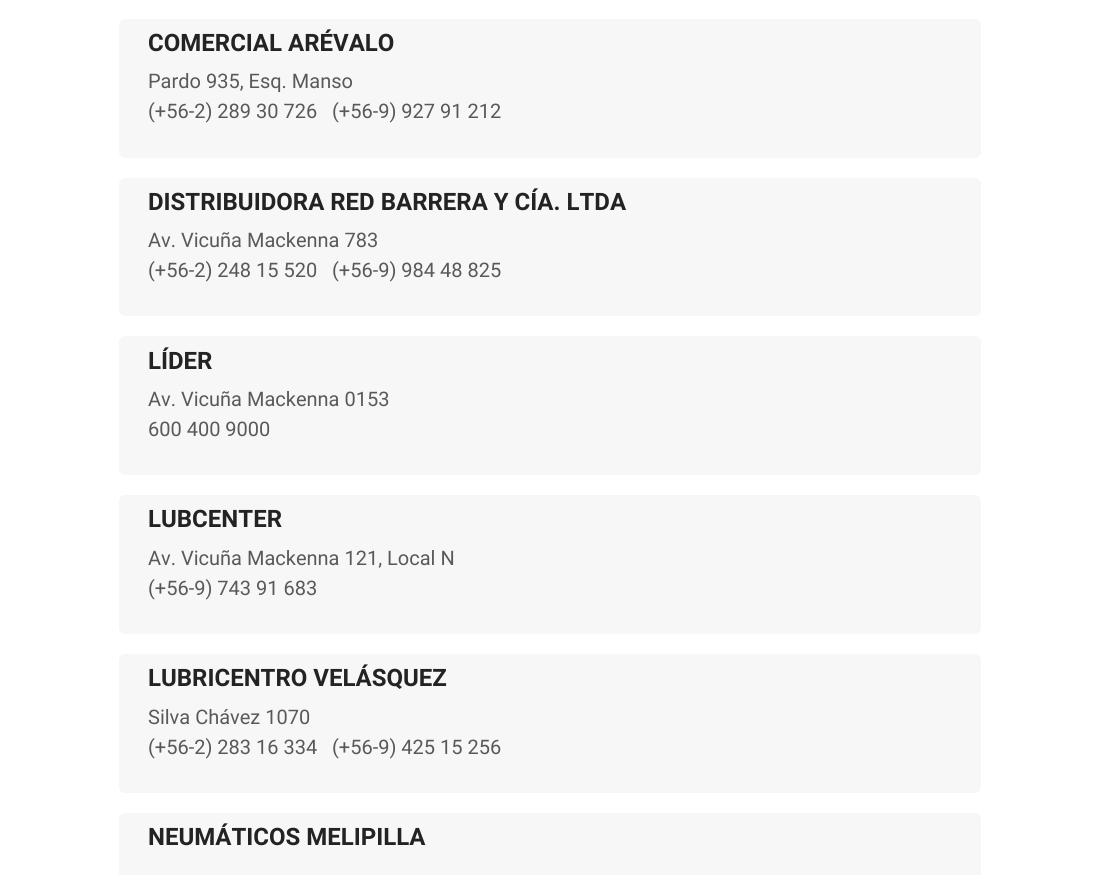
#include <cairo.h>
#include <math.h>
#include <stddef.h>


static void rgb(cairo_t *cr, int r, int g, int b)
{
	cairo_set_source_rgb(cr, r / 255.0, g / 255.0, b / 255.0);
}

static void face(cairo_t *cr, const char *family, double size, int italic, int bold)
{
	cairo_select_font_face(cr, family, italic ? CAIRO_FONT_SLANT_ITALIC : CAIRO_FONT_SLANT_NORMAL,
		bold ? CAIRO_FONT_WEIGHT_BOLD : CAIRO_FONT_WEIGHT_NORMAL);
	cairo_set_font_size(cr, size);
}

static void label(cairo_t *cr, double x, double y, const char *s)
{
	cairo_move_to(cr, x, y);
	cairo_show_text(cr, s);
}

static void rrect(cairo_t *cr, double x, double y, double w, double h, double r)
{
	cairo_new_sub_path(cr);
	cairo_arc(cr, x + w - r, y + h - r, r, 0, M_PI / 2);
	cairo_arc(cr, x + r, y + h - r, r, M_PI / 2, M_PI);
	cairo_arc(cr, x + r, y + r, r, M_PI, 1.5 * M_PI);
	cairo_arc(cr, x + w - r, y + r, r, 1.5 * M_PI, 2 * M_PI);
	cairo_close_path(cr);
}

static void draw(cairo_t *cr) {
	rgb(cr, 255, 255, 255);
	cairo_paint(cr);
	rgb(cr, 247, 247, 247);
	rrect(cr, 119, 19, 862, 139, 6);
	cairo_fill(cr);
	face(cr, "Roboto", 24, 0, 1);
	rgb(cr, 35, 35, 35);
	label(cr, 148, 51, "COMERCIAL ARÉVALO");
	face(cr, "Roboto", 20, 0, 0);
	rgb(cr, 89, 89, 89);
	label(cr, 148, 88, "Pardo 935, Esq. Manso");
	label(cr, 148, 118, "(+56-2) 289 30 726");
	label(cr, 332, 118, "(+56-9) 927 91 212");
	rgb(cr, 247, 247, 247);
	rrect(cr, 119, 178, 862, 138, 6);
	cairo_fill(cr);
	face(cr, "Roboto", 24, 0, 1);
	rgb(cr, 35, 35, 35);
	label(cr, 148, 210, "DISTRIBUIDORA RED BARRERA Y CÍA. LTDA");
	face(cr, "Roboto", 20, 0, 0);
	rgb(cr, 89, 89, 89);
	label(cr, 148, 247, "Av. Vicuña Mackenna 783");
	label(cr, 148, 277, "(+56-2) 248 15 520");
	label(cr, 332, 277, "(+56-9) 984 48 825");
	rgb(cr, 247, 247, 247);
	rrect(cr, 119, 336, 862, 139, 6);
	cairo_fill(cr);
	face(cr, "Roboto", 24, 0, 1);
	rgb(cr, 35, 35, 35);
	label(cr, 148, 369, "LÍDER");
	face(cr, "Roboto", 20, 0, 0);
	rgb(cr, 89, 89, 89);
	label(cr, 148, 406, "Av. Vicuña Mackenna 0153");
	label(cr, 148, 436, "600 400 9000");
	rgb(cr, 247, 247, 247);
	rrect(cr, 119, 495, 862, 139, 6);
	cairo_fill(cr);
	face(cr, "Roboto", 24, 0, 1);
	rgb(cr, 35, 35, 35);
	label(cr, 148, 527, "LUBCENTER");
	face(cr, "Roboto", 20, 0, 0);
	rgb(cr, 89, 89, 89);
	label(cr, 148, 565, "Av. Vicuña Mackenna 121, Local N");
	label(cr, 148, 595, "(+56-9) 743 91 683");
	rgb(cr, 247, 247, 247);
	rrect(cr, 119, 654, 862, 139, 6);
	cairo_fill(cr);
	face(cr, "Roboto", 24, 0, 1);
	rgb(cr, 35, 35, 35);
	label(cr, 148, 686, "LUBRICENTRO VELÁSQUEZ");
	face(cr, "Roboto", 20, 0, 0);
	rgb(cr, 89, 89, 89);
	label(cr, 148, 724, "Silva Chávez 1070");
	label(cr, 148, 754, "(+56-2) 283 16 334");
	label(cr, 332, 754, "(+56-9) 425 15 256");
	rgb(cr, 247, 247, 247);
	rrect(cr, 119, 813, 862, 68, 6);
	cairo_fill(cr);
	face(cr, "Roboto", 24, 0, 1);
	rgb(cr, 35, 35, 35);
	label(cr, 148, 845, "NEUMÁTICOS MELIPILLA");
}

int main(void) {
	cairo_surface_t *surface = cairo_image_surface_create(CAIRO_FORMAT_RGB24, 1098, 875);
	cairo_t *cr = cairo_create(surface);
	cairo_font_options_t *options = cairo_font_options_create();
	cairo_font_options_set_hint_metrics(options, CAIRO_HINT_METRICS_OFF);
	cairo_font_options_set_hint_style(options, CAIRO_HINT_STYLE_NONE);
	cairo_set_font_options(cr, options);
	cairo_set_miter_limit(cr, 4);
	draw(cr);
	cairo_surface_write_to_png(surface, "render.png");
	cairo_font_options_destroy(options);
	cairo_destroy(cr);
	cairo_surface_destroy(surface);
	return 0;
}
